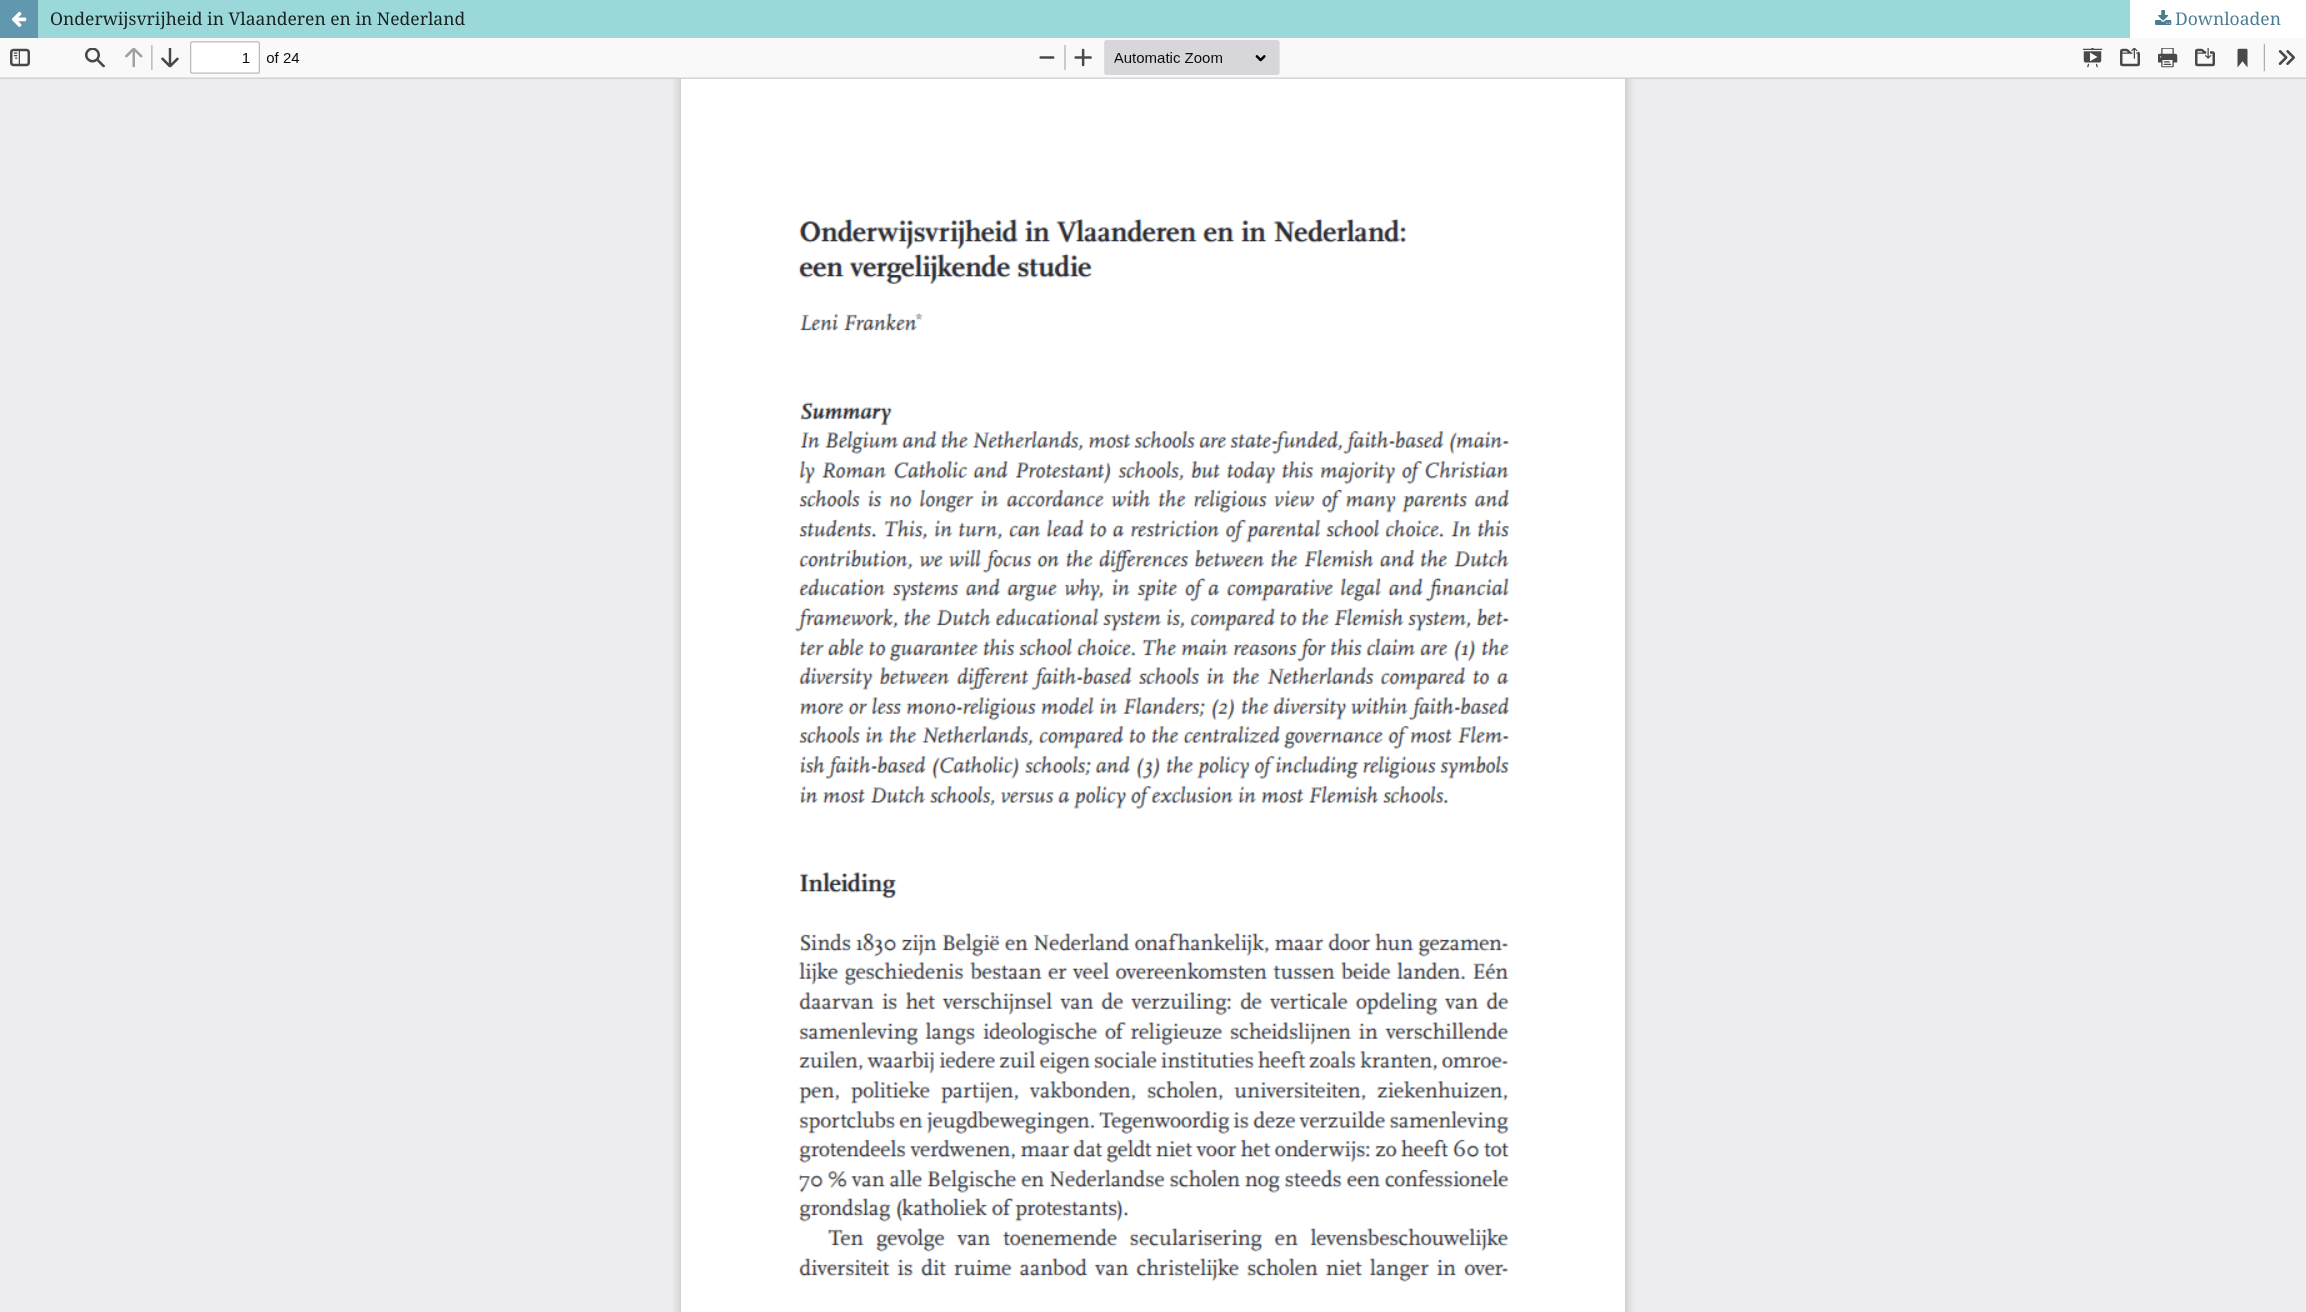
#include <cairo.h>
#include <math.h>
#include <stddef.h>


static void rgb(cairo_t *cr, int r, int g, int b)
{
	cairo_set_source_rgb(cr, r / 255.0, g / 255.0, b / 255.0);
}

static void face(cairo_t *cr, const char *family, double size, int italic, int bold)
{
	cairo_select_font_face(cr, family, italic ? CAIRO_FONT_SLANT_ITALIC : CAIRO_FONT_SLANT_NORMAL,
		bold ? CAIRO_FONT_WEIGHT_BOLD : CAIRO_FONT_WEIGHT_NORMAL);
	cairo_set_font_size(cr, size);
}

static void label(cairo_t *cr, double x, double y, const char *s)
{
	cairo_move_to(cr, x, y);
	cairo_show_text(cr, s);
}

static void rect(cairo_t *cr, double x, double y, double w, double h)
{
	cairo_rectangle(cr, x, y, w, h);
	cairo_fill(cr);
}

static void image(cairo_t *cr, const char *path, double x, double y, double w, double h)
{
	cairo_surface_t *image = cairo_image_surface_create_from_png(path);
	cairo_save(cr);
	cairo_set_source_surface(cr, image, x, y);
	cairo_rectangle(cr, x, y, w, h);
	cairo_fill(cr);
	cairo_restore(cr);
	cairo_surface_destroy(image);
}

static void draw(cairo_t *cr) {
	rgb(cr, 255, 255, 255);
	cairo_paint(cr);
	rgb(cr, 155, 216, 217);
	rect(cr, 38, 0, 2092, 38);
	rgb(cr, 98, 152, 174);
	rect(cr, 0, 0, 38, 38);
	image(cr, "image0.png", 11, 11, 16, 16);
	face(cr, "Noto Serif", 17.5, 0, 0);
	rgb(cr, 25, 35, 35);
	label(cr, 50, 25, "Onderwijsvrijheid in Vlaanderen en in Nederland");
	image(cr, "image1.png", 2155, 10, 17, 15);
	rgb(cr, 75, 125, 146);
	label(cr, 2175, 25, "Downloaden");
	image(cr, "image2.png", 0, 38, 2306, 1274);
}

int main(void) {
	cairo_surface_t *surface = cairo_image_surface_create(CAIRO_FORMAT_RGB24, 2306, 1312);
	cairo_t *cr = cairo_create(surface);
	cairo_font_options_t *options = cairo_font_options_create();
	cairo_font_options_set_hint_metrics(options, CAIRO_HINT_METRICS_OFF);
	cairo_font_options_set_hint_style(options, CAIRO_HINT_STYLE_NONE);
	cairo_set_font_options(cr, options);
	cairo_set_miter_limit(cr, 4);
	draw(cr);
	cairo_surface_write_to_png(surface, "render.png");
	cairo_font_options_destroy(options);
	cairo_destroy(cr);
	cairo_surface_destroy(surface);
	return 0;
}
